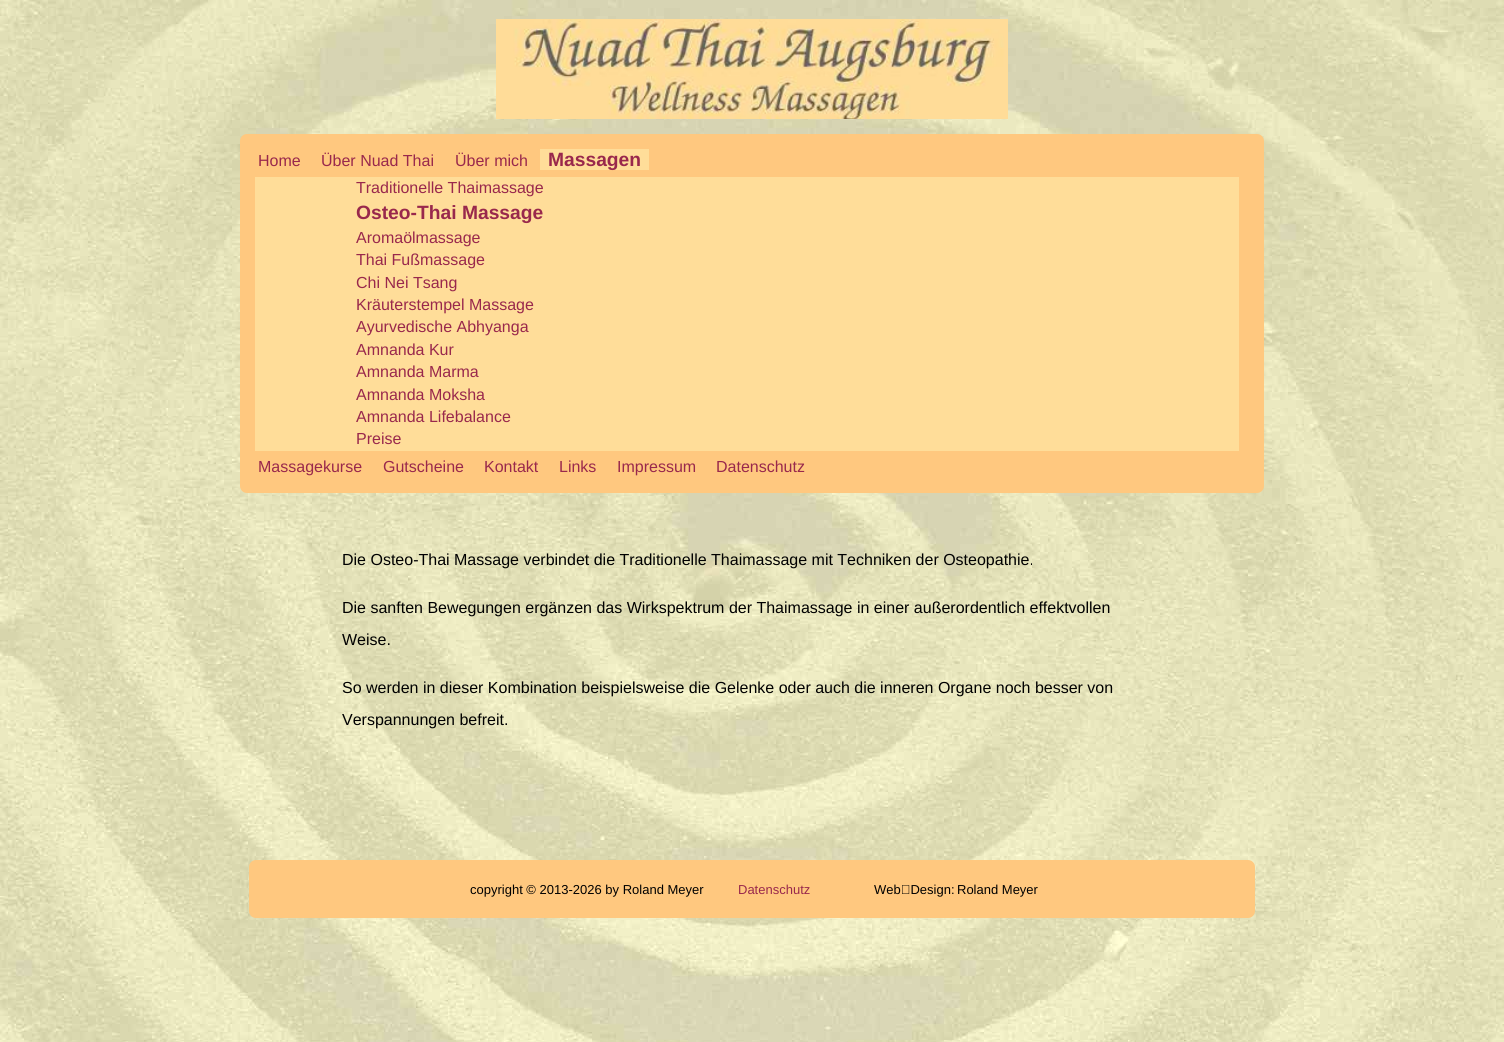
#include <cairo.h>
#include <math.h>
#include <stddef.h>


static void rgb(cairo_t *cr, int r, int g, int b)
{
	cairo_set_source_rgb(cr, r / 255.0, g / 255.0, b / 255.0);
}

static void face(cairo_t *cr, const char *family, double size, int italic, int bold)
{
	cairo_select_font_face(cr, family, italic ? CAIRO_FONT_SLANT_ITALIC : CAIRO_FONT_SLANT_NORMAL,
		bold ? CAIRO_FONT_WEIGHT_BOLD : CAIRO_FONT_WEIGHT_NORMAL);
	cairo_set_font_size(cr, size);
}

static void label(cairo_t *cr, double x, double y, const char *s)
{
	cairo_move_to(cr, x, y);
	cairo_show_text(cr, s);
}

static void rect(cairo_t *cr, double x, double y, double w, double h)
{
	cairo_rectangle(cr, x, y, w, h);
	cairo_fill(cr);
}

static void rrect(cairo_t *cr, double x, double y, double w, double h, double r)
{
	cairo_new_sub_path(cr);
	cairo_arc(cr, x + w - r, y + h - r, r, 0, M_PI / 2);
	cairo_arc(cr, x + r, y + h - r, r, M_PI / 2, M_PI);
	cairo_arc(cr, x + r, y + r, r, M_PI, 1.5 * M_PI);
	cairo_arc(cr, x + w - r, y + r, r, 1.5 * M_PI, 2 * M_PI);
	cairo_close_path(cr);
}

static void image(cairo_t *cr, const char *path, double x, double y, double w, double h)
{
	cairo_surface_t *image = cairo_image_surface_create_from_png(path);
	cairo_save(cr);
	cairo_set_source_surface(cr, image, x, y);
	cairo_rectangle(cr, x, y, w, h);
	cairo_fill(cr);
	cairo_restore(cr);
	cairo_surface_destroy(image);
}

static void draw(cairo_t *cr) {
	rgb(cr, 255, 255, 255);
	cairo_paint(cr);
	image(cr, "image0.png", 0, 0, 1504, 1042);
	image(cr, "image1.png", 496, 19, 512, 100);
	rgb(cr, 255, 200, 127);
	rrect(cr, 240, 134, 1024, 359, 7);
	cairo_fill(cr);
	face(cr, "Liberation Sans", 16, 0, 0);
	rgb(cr, 153, 40, 76);
	label(cr, 258, 166, "Home");
	label(cr, 321, 166, "Über Nuad Thai");
	label(cr, 455, 166, "Über mich");
	rgb(cr, 255, 221, 153);
	rect(cr, 540, 149, 109, 21);
	face(cr, "Liberation Sans", 19.25, 0, 1);
	rgb(cr, 153, 40, 76);
	label(cr, 548, 166, "Massagen");
	rgb(cr, 255, 221, 153);
	rect(cr, 255, 177, 984, 274);
	face(cr, "Liberation Sans", 16, 0, 0);
	rgb(cr, 153, 40, 76);
	label(cr, 356, 193, "Traditionelle Thaimassage");
	face(cr, "Liberation Sans", 19.25, 0, 1);
	label(cr, 356, 219, "Osteo-Thai Massage");
	face(cr, "Liberation Sans", 16, 0, 0);
	label(cr, 356, 243, "Aromaölmassage");
	label(cr, 356, 265, "Thai Fußmassage");
	label(cr, 356, 288, "Chi Nei Tsang");
	label(cr, 356, 310, "Kräuterstempel Massage");
	label(cr, 356, 332, "Ayurvedische Abhyanga");
	label(cr, 356, 355, "Amnanda Kur");
	label(cr, 356, 377, "Amnanda Marma");
	label(cr, 356, 400, "Amnanda Moksha");
	label(cr, 356, 422, "Amnanda Lifebalance");
	label(cr, 356, 444, "Preise");
	label(cr, 258, 472, "Massagekurse");
	label(cr, 383, 472, "Gutscheine");
	label(cr, 484, 472, "Kontakt");
	label(cr, 559, 472, "Links");
	label(cr, 617, 472, "Impressum");
	label(cr, 716, 472, "Datenschutz");
	rgb(cr, 0, 0, 0);
	label(cr, 342, 565, "Die Osteo-Thai Massage verbindet die Traditionelle Thaimassage mit Techniken der Osteopathie.");
	label(cr, 342, 613, "Die sanften Bewegungen ergänzen das Wirkspektrum der Thaimassage in einer außerordentlich effektvollen");
	label(cr, 342, 645, "Weise.");
	label(cr, 342, 693, "So werden in dieser Kombination beispielsweise die Gelenke oder auch die inneren Organe noch besser von");
	label(cr, 342, 725, "Verspannungen befreit.");
	rgb(cr, 255, 200, 127);
	rrect(cr, 249, 860, 1006, 58, 7);
	cairo_fill(cr);
	face(cr, "Liberation Sans", 13, 0, 0);
	rgb(cr, 0, 0, 0);
	label(cr, 470, 894, "copyright © 2013-2026 by Roland Meyer");
	rgb(cr, 153, 40, 76);
	label(cr, 738, 894, "Datenschutz");
	rgb(cr, 0, 0, 0);
	label(cr, 874, 894, "Web‑Design:");
	label(cr, 957, 894, "Roland Meyer");
}

int main(void) {
	cairo_surface_t *surface = cairo_image_surface_create(CAIRO_FORMAT_RGB24, 1504, 1042);
	cairo_t *cr = cairo_create(surface);
	cairo_font_options_t *options = cairo_font_options_create();
	cairo_font_options_set_hint_metrics(options, CAIRO_HINT_METRICS_OFF);
	cairo_font_options_set_hint_style(options, CAIRO_HINT_STYLE_NONE);
	cairo_set_font_options(cr, options);
	cairo_set_miter_limit(cr, 4);
	draw(cr);
	cairo_surface_write_to_png(surface, "render.png");
	cairo_font_options_destroy(options);
	cairo_destroy(cr);
	cairo_surface_destroy(surface);
	return 0;
}
